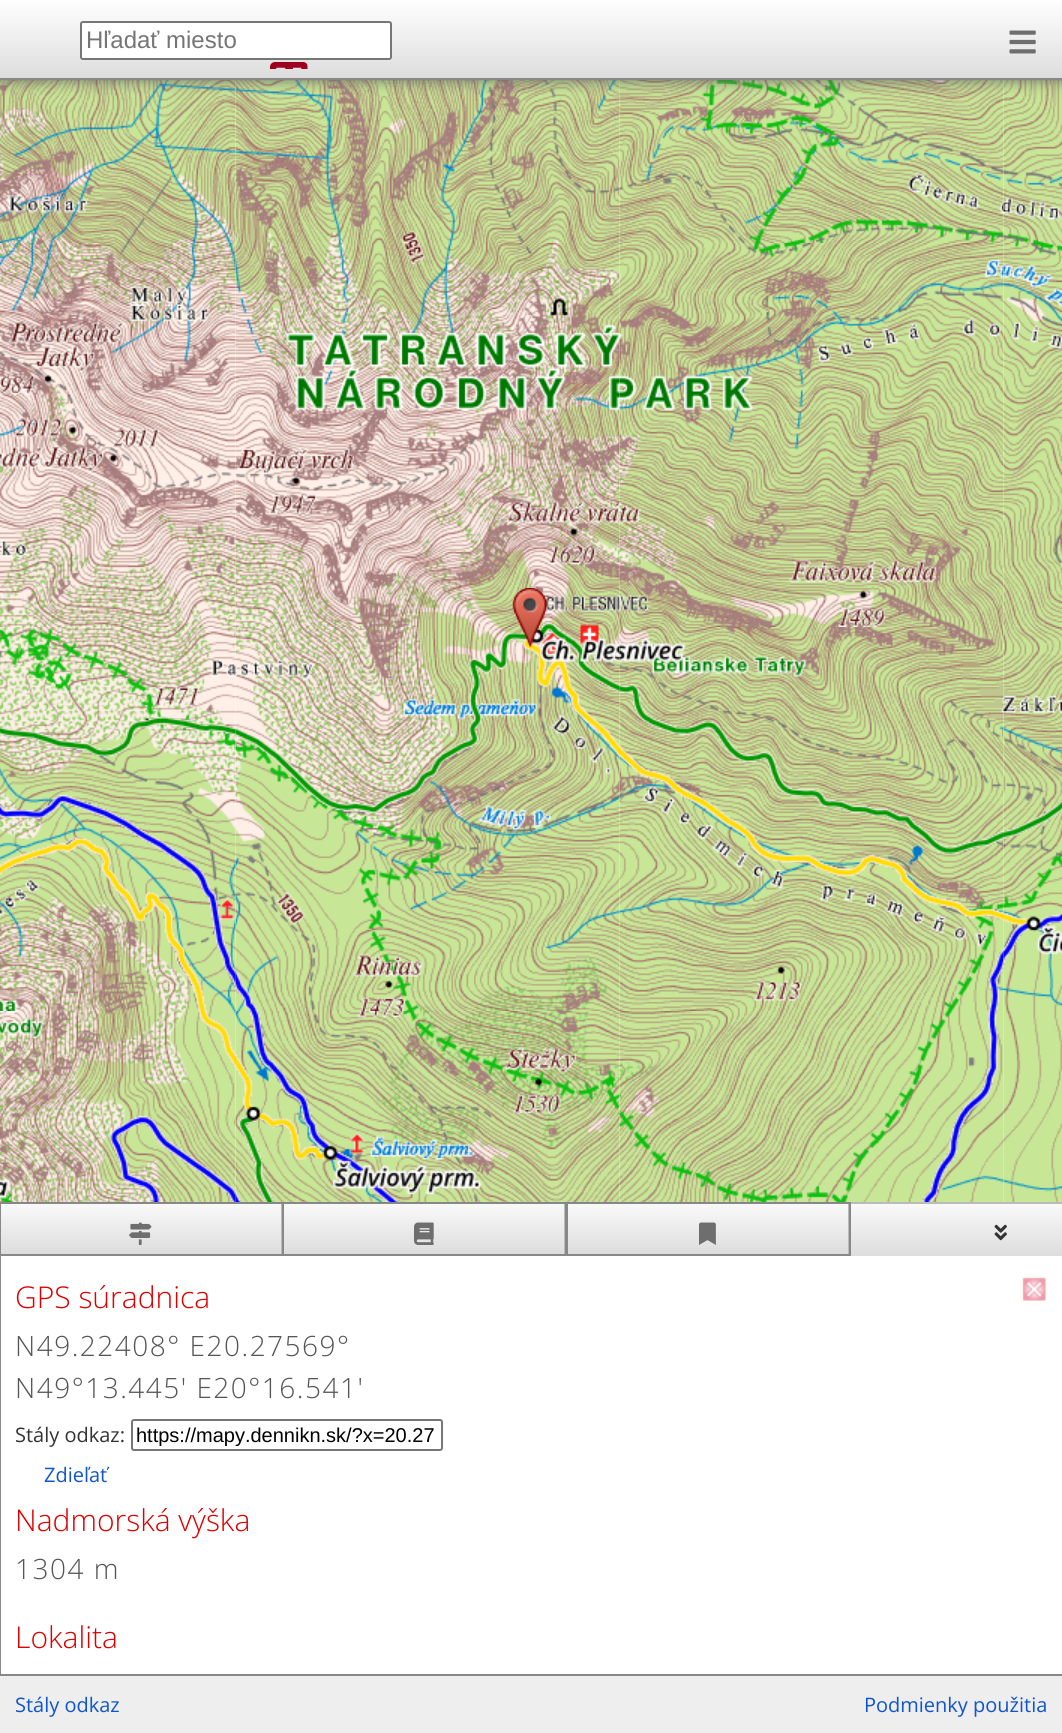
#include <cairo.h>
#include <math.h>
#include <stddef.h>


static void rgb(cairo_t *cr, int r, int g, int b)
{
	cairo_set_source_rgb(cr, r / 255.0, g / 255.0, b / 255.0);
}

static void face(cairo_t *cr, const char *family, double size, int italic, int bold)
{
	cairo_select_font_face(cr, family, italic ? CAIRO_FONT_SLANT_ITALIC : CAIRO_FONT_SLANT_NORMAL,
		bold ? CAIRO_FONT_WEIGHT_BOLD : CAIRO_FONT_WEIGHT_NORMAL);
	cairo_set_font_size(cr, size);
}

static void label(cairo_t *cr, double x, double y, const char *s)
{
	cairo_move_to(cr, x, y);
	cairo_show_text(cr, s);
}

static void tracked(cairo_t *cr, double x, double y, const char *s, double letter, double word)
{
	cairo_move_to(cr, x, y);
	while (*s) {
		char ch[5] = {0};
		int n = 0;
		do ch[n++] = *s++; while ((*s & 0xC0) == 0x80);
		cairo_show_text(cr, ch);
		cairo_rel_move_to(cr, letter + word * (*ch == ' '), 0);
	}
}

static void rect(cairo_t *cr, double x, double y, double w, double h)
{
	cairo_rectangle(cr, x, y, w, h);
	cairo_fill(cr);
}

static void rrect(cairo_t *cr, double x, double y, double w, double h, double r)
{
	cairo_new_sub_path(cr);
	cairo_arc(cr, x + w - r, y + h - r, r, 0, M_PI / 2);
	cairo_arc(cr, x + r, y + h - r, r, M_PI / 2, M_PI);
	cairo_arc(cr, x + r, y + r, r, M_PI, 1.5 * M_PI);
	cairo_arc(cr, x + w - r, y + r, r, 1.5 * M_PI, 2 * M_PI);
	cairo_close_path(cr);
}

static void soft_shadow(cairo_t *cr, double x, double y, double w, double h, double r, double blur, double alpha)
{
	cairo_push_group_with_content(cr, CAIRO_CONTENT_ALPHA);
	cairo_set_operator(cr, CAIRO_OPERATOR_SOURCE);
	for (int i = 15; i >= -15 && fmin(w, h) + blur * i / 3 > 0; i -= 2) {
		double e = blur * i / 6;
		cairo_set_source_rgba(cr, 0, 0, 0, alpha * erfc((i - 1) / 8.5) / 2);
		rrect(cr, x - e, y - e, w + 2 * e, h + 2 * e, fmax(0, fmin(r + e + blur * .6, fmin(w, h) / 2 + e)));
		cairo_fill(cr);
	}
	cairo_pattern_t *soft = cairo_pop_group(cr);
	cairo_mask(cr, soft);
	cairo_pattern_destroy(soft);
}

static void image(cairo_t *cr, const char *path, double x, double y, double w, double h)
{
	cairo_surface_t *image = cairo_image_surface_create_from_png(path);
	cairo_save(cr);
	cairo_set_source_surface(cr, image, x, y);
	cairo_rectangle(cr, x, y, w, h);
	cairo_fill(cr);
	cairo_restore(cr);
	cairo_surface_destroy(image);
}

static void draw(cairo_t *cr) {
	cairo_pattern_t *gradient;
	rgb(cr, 255, 255, 255);
	cairo_paint(cr);
	image(cr, "image3.png", 235, 80, 385, 163);
	image(cr, "image2.png", 0, 80, 236, 163);
	image(cr, "image4.png", 619, 80, 385, 163);
	image(cr, "image5.png", 1003, 80, 59, 163);
	rgb(cr, 102, 102, 102);
	soft_shadow(cr, 0, -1, 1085, 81, 0, 7.5, 1);
	gradient = cairo_pattern_create_linear(0, -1.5, 0, 78);
	cairo_pattern_add_color_stop_rgba(gradient, 0, 1, 1, 1, 1);
	cairo_pattern_add_color_stop_rgba(gradient, 1, 0.867, 0.867, 0.867, 1);
	cairo_set_source(cr, gradient);
	cairo_pattern_destroy(gradient);
	rect(cr, 0, 0, 1062, 78);
	rgb(cr, 136, 136, 136);
	rect(cr, 0, 78, 1062, 2);
	rgb(cr, 255, 255, 255);
	rrect(cr, 81, 22, 310, 37, 2);
	cairo_fill_preserve(cr);
	rgb(cr, 118, 118, 118);
	cairo_stroke(cr);
	face(cr, "Liberation Sans", 24, 0, 0);
	rgb(cr, 117, 117, 117);
	label(cr, 86, 48, "Hľadať miesto");
	image(cr, "image0.png", 270, 62, 38, 7);
	image(cr, "image1.png", 1009, 30, 27, 24);
	image(cr, "image11.png", 235, 627, 385, 384);
	image(cr, "image7.png", 235, 243, 385, 385);
	image(cr, "image6.png", 0, 243, 236, 384);
	image(cr, "image8.png", 619, 243, 385, 384);
	image(cr, "image9.png", 1003, 243, 59, 384);
	image(cr, "image10.png", 0, 627, 236, 384);
	image(cr, "image12.png", 619, 627, 385, 384);
	image(cr, "image13.png", 1003, 627, 59, 384);
	image(cr, "image15.png", 235, 1011, 385, 191);
	image(cr, "image14.png", 0, 1011, 236, 191);
	image(cr, "image16.png", 619, 1011, 385, 191);
	image(cr, "image17.png", 1003, 1011, 59, 191);
	image(cr, "image20.png", 235, 626, 385, 385);
	image(cr, "image18.png", 512, 588, 45, 40);
	image(cr, "image19.png", 0, 716, 236, 295);
	image(cr, "image21.png", 619, 638, 385, 373);
	image(cr, "image22.png", 1003, 799, 59, 166);
	image(cr, "image24.png", 235, 1011, 247, 191);
	image(cr, "image23.png", 0, 1011, 236, 191);
	image(cr, "image25.png", 922, 1011, 76, 191);
	image(cr, "image26.png", 512, 588, 35, 59);
	rgb(cr, 136, 136, 136);
	rect(cr, 0, 1254, 1, 420);
	gradient = cairo_pattern_create_linear(0, 1203, 0, 1256);
	cairo_pattern_add_color_stop_rgba(gradient, 0, 0.98, 0.98, 0.98, 1);
	cairo_pattern_add_color_stop_rgba(gradient, 1, 0.867, 0.867, 0.867, 1);
	cairo_set_source(cr, gradient);
	cairo_pattern_destroy(gradient);
	rect(cr, 851, 1204, 211, 52);
	rgb(cr, 187, 187, 187);
	rect(cr, 851, 1202, 211, 2);
	gradient = cairo_pattern_create_linear(0, 1203, 0, 1254);
	cairo_pattern_add_color_stop_rgba(gradient, 0, 0.98, 0.98, 0.98, 1);
	cairo_pattern_add_color_stop_rgba(gradient, 1, 0.867, 0.867, 0.867, 1);
	cairo_set_source(cr, gradient);
	cairo_pattern_destroy(gradient);
	rect(cr, 1, 1204, 280, 50);
	rgb(cr, 187, 187, 187);
	rect(cr, 281, 1203, 1, 51);
	cairo_rectangle(cr, 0, 1203, 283, 52);
	rgb(cr, 136, 136, 136);
	cairo_stroke(cr);
	image(cr, "image27.png", 129, 1222, 23, 23);
	gradient = cairo_pattern_create_linear(284, 1203, 284, 1254);
	cairo_pattern_add_color_stop_rgba(gradient, 0, 0.98, 0.98, 0.98, 1);
	cairo_pattern_add_color_stop_rgba(gradient, 1, 0.867, 0.867, 0.867, 1);
	cairo_set_source(cr, gradient);
	cairo_pattern_destroy(gradient);
	rect(cr, 284, 1204, 280, 50);
	rgb(cr, 187, 187, 187);
	rect(cr, 564, 1203, 1, 51);
	cairo_rectangle(cr, 283, 1203, 283, 52);
	rgb(cr, 136, 136, 136);
	cairo_stroke(cr);
	image(cr, "image28.png", 414, 1222, 20, 23);
	gradient = cairo_pattern_create_linear(567, 1203, 567, 1254);
	cairo_pattern_add_color_stop_rgba(gradient, 0, 0.98, 0.98, 0.98, 1);
	cairo_pattern_add_color_stop_rgba(gradient, 1, 0.867, 0.867, 0.867, 1);
	cairo_set_source(cr, gradient);
	cairo_pattern_destroy(gradient);
	rect(cr, 568, 1204, 280, 50);
	rgb(cr, 187, 187, 187);
	rect(cr, 848, 1203, 1, 51);
	cairo_rectangle(cr, 567, 1203, 283, 52);
	rgb(cr, 136, 136, 136);
	cairo_stroke(cr);
	image(cr, "image29.png", 699, 1222, 17, 23);
	image(cr, "image30.png", 994, 1224, 13, 17);
	face(cr, "Open Sans Light", 30, 0, 0);
	rgb(cr, 221, 0, 0);
	label(cr, 15, 1308, "GPS súradnica");
	face(cr, "Open Sans Light", 28, 0, 0);
	rgb(cr, 85, 85, 85);
	tracked(cr, 15, 1356, "N49.22408° E20.27569°", 1.5, 0);
	tracked(cr, 15, 1398, "N49°13.445' E20°16.541'", 1.5, 0);
	face(cr, "Open Sans", 20, 0, 0);
	rgb(cr, 51, 51, 51);
	label(cr, 15, 1442, "Stály odkaz:");
	rrect(cr, 132, 1420, 310, 30, 2);
	rgb(cr, 118, 118, 118);
	cairo_stroke(cr);
	cairo_save(cr);
	cairo_rectangle(cr, 137, 1424, 300, 22);
	cairo_clip(cr);
	face(cr, "Liberation Sans", 20, 0, 0);
	rgb(cr, 0, 0, 0);
	label(cr, 136, 1442, "https://mapy.dennikn.sk/?x=20.27");
	cairo_restore(cr);
	rgb(cr, 17, 85, 204);
	label(cr, 44, 1482, "Zdieľať");
	face(cr, "Open Sans Light", 30, 0, 0);
	rgb(cr, 221, 0, 0);
	label(cr, 15, 1531, "Nadmorská výška");
	face(cr, "Open Sans Light", 28, 0, 0);
	rgb(cr, 85, 85, 85);
	tracked(cr, 15, 1579, "1304 m", 1.5, 0);
	face(cr, "Open Sans Light", 30, 0, 0);
	rgb(cr, 221, 0, 0);
	label(cr, 15, 1648, "Lokalita");
	image(cr, "image31.png", 1021, 1276, 26, 26);
	rgb(cr, 238, 238, 238);
	rect(cr, 0, 1676, 1062, 57);
	rgb(cr, 136, 136, 136);
	rect(cr, 0, 1674, 1062, 2);
	face(cr, "Open Sans", 20, 0, 0);
	rgb(cr, 17, 85, 204);
	label(cr, 15, 1712, "Stály odkaz");
	label(cr, 864, 1712, "Podmienky použitia");
}

int main(void) {
	cairo_surface_t *surface = cairo_image_surface_create(CAIRO_FORMAT_RGB24, 1062, 1733);
	cairo_t *cr = cairo_create(surface);
	cairo_font_options_t *options = cairo_font_options_create();
	cairo_font_options_set_hint_metrics(options, CAIRO_HINT_METRICS_OFF);
	cairo_font_options_set_hint_style(options, CAIRO_HINT_STYLE_NONE);
	cairo_set_font_options(cr, options);
	cairo_set_miter_limit(cr, 4);
	draw(cr);
	cairo_surface_write_to_png(surface, "render.png");
	cairo_font_options_destroy(options);
	cairo_destroy(cr);
	cairo_surface_destroy(surface);
	return 0;
}
